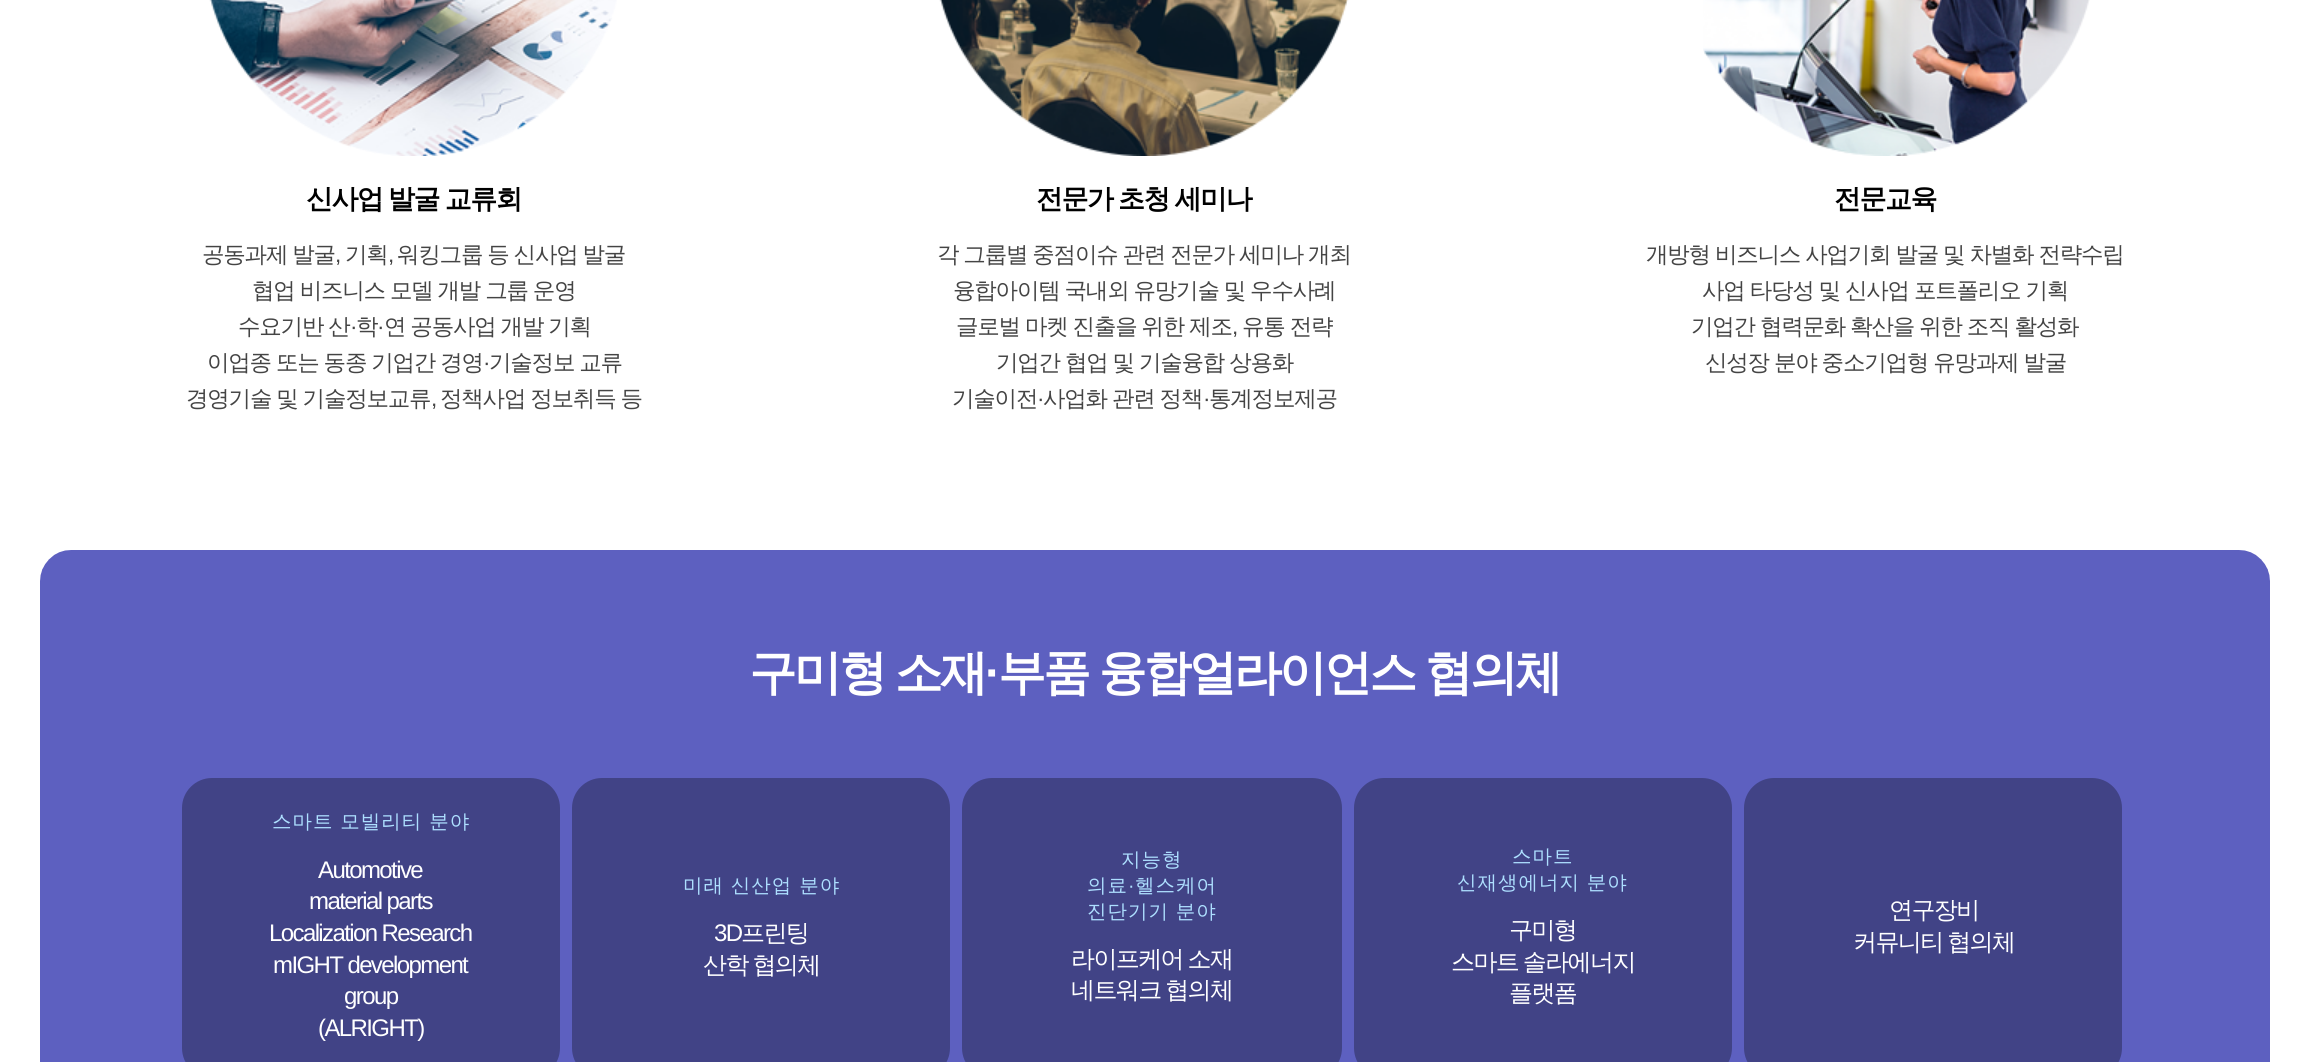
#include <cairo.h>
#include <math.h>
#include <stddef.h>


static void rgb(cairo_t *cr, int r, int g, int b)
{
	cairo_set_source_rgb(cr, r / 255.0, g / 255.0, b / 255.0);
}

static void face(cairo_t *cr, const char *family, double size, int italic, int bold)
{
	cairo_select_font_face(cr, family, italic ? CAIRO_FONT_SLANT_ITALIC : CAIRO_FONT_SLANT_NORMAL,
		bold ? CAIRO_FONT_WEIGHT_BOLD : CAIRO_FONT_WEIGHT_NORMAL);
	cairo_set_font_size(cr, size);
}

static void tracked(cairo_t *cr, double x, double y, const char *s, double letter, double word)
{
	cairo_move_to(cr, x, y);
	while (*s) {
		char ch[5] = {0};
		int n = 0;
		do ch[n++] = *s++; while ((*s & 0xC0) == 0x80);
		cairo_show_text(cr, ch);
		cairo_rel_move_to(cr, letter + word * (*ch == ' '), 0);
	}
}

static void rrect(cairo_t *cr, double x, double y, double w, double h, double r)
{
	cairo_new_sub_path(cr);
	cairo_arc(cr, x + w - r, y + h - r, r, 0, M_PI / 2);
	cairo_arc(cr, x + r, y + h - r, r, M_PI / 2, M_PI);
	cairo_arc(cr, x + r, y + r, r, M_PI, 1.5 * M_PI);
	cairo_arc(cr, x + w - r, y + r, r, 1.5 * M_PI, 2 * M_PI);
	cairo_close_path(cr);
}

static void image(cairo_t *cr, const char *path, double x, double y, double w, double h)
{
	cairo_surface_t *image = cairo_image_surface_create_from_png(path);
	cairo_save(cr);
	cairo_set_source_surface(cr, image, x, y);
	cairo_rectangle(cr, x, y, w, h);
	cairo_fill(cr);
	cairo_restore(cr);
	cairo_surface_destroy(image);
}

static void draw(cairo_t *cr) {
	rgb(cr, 255, 255, 255);
	cairo_paint(cr);
	image(cr, "image0.png", 209, 0, 408, 156);
	face(cr, "WenQuanYi Zen Hei", 27, 0, 1);
	rgb(cr, 0, 0, 0);
	tracked(cr, 306, 208, "신사업 발굴 교류회", -1.5, -1);
	face(cr, "WenQuanYi Zen Hei Medium", 22.5, 0, 0);
	rgb(cr, 68, 68, 68);
	tracked(cr, 202, 262, "공동과제 발굴", -1.2, -0.5);
	face(cr, "Liberation Sans", 22.5, 0, 0);
	tracked(cr, 335, 262, ",", -1.2, 0);
	face(cr, "WenQuanYi Zen Hei Medium", 22.5, 0, 0);
	tracked(cr, 345, 262, "기획", -1.2, 0);
	face(cr, "Liberation Sans", 22.5, 0, 0);
	tracked(cr, 388, 262, ",", -1.2, 0);
	face(cr, "WenQuanYi Zen Hei Medium", 22.5, 0, 0);
	tracked(cr, 397, 262, "워킹그룹 등 신사업 발굴", -1.2, -0.5);
	tracked(cr, 252, 298, "협업 비즈니스 모델 개발 그룹 운영", -1.2, -0.5);
	tracked(cr, 238, 334, "수요기반 산", -1.2, -0.5);
	face(cr, "Liberation Sans", 22.5, 0, 0);
	tracked(cr, 350, 334, "·", -1.2, 0);
	face(cr, "WenQuanYi Zen Hei Medium", 22.5, 0, 0);
	tracked(cr, 356, 334, "학", -1.2, 0);
	face(cr, "Liberation Sans", 22.5, 0, 0);
	tracked(cr, 377, 334, "·", -1.2, 0);
	face(cr, "WenQuanYi Zen Hei Medium", 22.5, 0, 0);
	tracked(cr, 384, 334, "연 공동사업 개발 기획", -1.2, -0.5);
	tracked(cr, 207, 370, "이업종 또는 동종 기업간 경영", -1.2, -0.5);
	face(cr, "Liberation Sans", 22.5, 0, 0);
	tracked(cr, 483, 370, "·", -1.2, 0);
	face(cr, "WenQuanYi Zen Hei Medium", 22.5, 0, 0);
	tracked(cr, 489, 370, "기술정보 교류", -1.2, -0.5);
	tracked(cr, 186, 406, "경영기술 및 기술정보교류", -1.2, -0.5);
	face(cr, "Liberation Sans", 22.5, 0, 0);
	tracked(cr, 431, 406, ",", -1.2, 0);
	face(cr, "WenQuanYi Zen Hei Medium", 22.5, 0, 0);
	tracked(cr, 440, 406, "정책사업 정보취득 등", -1.2, -0.5);
	image(cr, "image1.png", 939, 0, 410, 156);
	face(cr, "WenQuanYi Zen Hei", 27, 0, 1);
	rgb(cr, 0, 0, 0);
	tracked(cr, 1036, 208, "전문가 초청 세미나", -1.5, -1);
	face(cr, "WenQuanYi Zen Hei Medium", 22.5, 0, 0);
	rgb(cr, 68, 68, 68);
	tracked(cr, 937, 262, "각 그룹별 중점이슈 관련 전문가 세미나 개최", -1.2, -0.5);
	tracked(cr, 953, 298, "융합아이템 국내외 유망기술 및 우수사례", -1.2, -0.5);
	tracked(cr, 956, 334, "글로벌 마켓 진출을 위한 제조", -1.2, -0.5);
	face(cr, "Liberation Sans", 22.5, 0, 0);
	tracked(cr, 1232, 334, ",", -1.2, 0);
	face(cr, "WenQuanYi Zen Hei Medium", 22.5, 0, 0);
	tracked(cr, 1242, 334, "유통 전략", -1.2, -0.5);
	tracked(cr, 996, 370, "기업간 협업 및 기술융합 상용화", -1.2, -0.5);
	tracked(cr, 952, 406, "기술이전", -1.2, 0);
	face(cr, "Liberation Sans", 22.5, 0, 0);
	tracked(cr, 1037, 406, "·", -1.2, 0);
	face(cr, "WenQuanYi Zen Hei Medium", 22.5, 0, 0);
	tracked(cr, 1043, 406, "사업화 관련 정책", -1.2, -0.5);
	face(cr, "Liberation Sans", 22.5, 0, 0);
	tracked(cr, 1203, 406, "·", -1.2, 0);
	face(cr, "WenQuanYi Zen Hei Medium", 22.5, 0, 0);
	tracked(cr, 1209, 406, "통계정보제공", -1.2, 0);
	image(cr, "image2.png", 1703, 0, 387, 156);
	face(cr, "WenQuanYi Zen Hei", 27, 0, 1);
	rgb(cr, 0, 0, 0);
	tracked(cr, 1834, 208, "전문교육", -1.5, 0);
	face(cr, "WenQuanYi Zen Hei Medium", 22.5, 0, 0);
	rgb(cr, 68, 68, 68);
	tracked(cr, 1646, 262, "개방형 비즈니스 사업기회 발굴 및 차별화 전략수립", -1.2, -0.5);
	tracked(cr, 1702, 298, "사업 타당성 및 신사업 포트폴리오 기획", -1.2, -0.5);
	tracked(cr, 1691, 334, "기업간 협력문화 확산을 위한 조직 활성화", -1.2, -0.5);
	tracked(cr, 1705, 370, "신성장 분야 중소기업형 유망과제 발굴", -1.2, -0.5);
	image(cr, "image3.png", 40, 550, 2230, 512);
	face(cr, "WenQuanYi Zen Hei", 48, 0, 1);
	rgb(cr, 255, 255, 255);
	tracked(cr, 749, 689, "구미형 소재", -2.9, -1);
	face(cr, "Liberation Sans", 48, 0, 1);
	tracked(cr, 985, 689, "·", -2.9, 0);
	face(cr, "WenQuanYi Zen Hei", 48, 0, 1);
	tracked(cr, 998, 689, "부품 융합얼라이언스 협의체", -2.9, -1);
	rgb(cr, 65, 67, 134);
	rrect(cr, 182, 778, 378, 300, 30);
	cairo_fill(cr);
	face(cr, "WenQuanYi Zen Hei Medium", 19.5, 0, 0);
	rgb(cr, 173, 223, 255);
	tracked(cr, 272, 828, "스마트 모빌리티 분야", 1, 0);
	face(cr, "Liberation Sans", 24, 0, 0);
	rgb(cr, 255, 255, 255);
	tracked(cr, 318, 878, "Automotive", -1.6, 0);
	tracked(cr, 309, 909, "material parts", -1.6, 0);
	tracked(cr, 269, 941, "Localization Research", -1.6, 0);
	tracked(cr, 273, 973, "mIGHT development", -1.6, 0);
	tracked(cr, 344, 1004, "group", -1.6, 0);
	tracked(cr, 318, 1036, "(ALRIGHT)", -1.6, 0);
	rgb(cr, 65, 67, 134);
	rrect(cr, 572, 778, 378, 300, 30);
	cairo_fill(cr);
	face(cr, "WenQuanYi Zen Hei Medium", 19.5, 0, 0);
	rgb(cr, 173, 223, 255);
	tracked(cr, 683, 892, "미래 신산업 분야", 1, 0);
	face(cr, "Liberation Sans", 24, 0, 0);
	rgb(cr, 255, 255, 255);
	tracked(cr, 714, 941, "3D", -1.6, 0);
	face(cr, "WenQuanYi Zen Hei Medium", 24, 0, 0);
	tracked(cr, 741, 941, "프린팅", -1.6, 0);
	tracked(cr, 703, 973, "산학 협의체", -1.6, -1);
	rgb(cr, 65, 67, 134);
	rrect(cr, 962, 778, 380, 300, 30);
	cairo_fill(cr);
	face(cr, "WenQuanYi Zen Hei Medium", 19.5, 0, 0);
	rgb(cr, 173, 223, 255);
	tracked(cr, 1121, 866, "지능형", 1, 0);
	tracked(cr, 1087, 892, "의료", 1, 0);
	face(cr, "Liberation Sans", 19.5, 0, 0);
	tracked(cr, 1128, 892, "·", 1, 0);
	face(cr, "WenQuanYi Zen Hei Medium", 19.5, 0, 0);
	tracked(cr, 1135, 892, "헬스케어", 1, 0);
	tracked(cr, 1087, 918, "진단기기 분야", 1, 0);
	face(cr, "WenQuanYi Zen Hei Medium", 24, 0, 0);
	rgb(cr, 255, 255, 255);
	tracked(cr, 1071, 967, "라이프케어 소재", -1.6, -1);
	tracked(cr, 1071, 998, "네트워크 협의체", -1.6, -1);
	rgb(cr, 65, 67, 134);
	rrect(cr, 1354, 778, 378, 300, 30);
	cairo_fill(cr);
	face(cr, "WenQuanYi Zen Hei Medium", 19.5, 0, 0);
	rgb(cr, 173, 223, 255);
	tracked(cr, 1512, 863, "스마트", 1, 0);
	tracked(cr, 1457, 889, "신재생에너지 분야", 1, 0);
	face(cr, "WenQuanYi Zen Hei Medium", 24, 0, 0);
	rgb(cr, 255, 255, 255);
	tracked(cr, 1509, 938, "구미형", -1.6, 0);
	tracked(cr, 1451, 970, "스마트 솔라에너지", -1.6, -1);
	tracked(cr, 1509, 1001, "플랫폼", -1.6, 0);
	rgb(cr, 65, 67, 134);
	rrect(cr, 1744, 778, 378, 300, 30);
	cairo_fill(cr);
	rgb(cr, 255, 255, 255);
	tracked(cr, 1889, 918, "연구장비", -1.6, 0);
	tracked(cr, 1853, 950, "커뮤니티 협의체", -1.6, -1);
}

int main(void) {
	cairo_surface_t *surface = cairo_image_surface_create(CAIRO_FORMAT_RGB24, 2309, 1062);
	cairo_t *cr = cairo_create(surface);
	cairo_font_options_t *options = cairo_font_options_create();
	cairo_font_options_set_hint_metrics(options, CAIRO_HINT_METRICS_OFF);
	cairo_font_options_set_hint_style(options, CAIRO_HINT_STYLE_NONE);
	cairo_set_font_options(cr, options);
	cairo_set_miter_limit(cr, 4);
	draw(cr);
	cairo_surface_write_to_png(surface, "render.png");
	cairo_font_options_destroy(options);
	cairo_destroy(cr);
	cairo_surface_destroy(surface);
	return 0;
}
